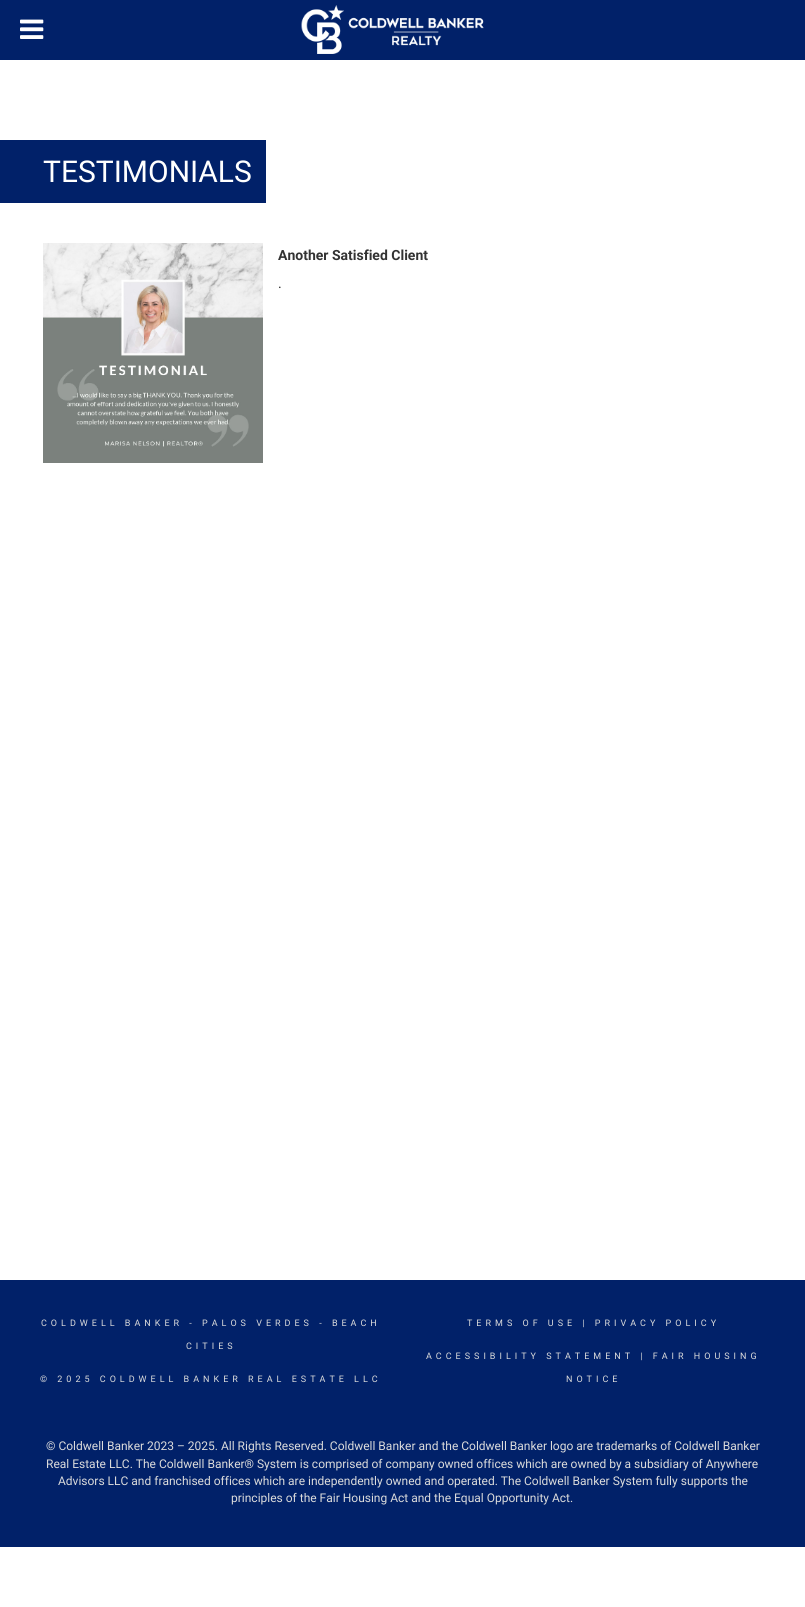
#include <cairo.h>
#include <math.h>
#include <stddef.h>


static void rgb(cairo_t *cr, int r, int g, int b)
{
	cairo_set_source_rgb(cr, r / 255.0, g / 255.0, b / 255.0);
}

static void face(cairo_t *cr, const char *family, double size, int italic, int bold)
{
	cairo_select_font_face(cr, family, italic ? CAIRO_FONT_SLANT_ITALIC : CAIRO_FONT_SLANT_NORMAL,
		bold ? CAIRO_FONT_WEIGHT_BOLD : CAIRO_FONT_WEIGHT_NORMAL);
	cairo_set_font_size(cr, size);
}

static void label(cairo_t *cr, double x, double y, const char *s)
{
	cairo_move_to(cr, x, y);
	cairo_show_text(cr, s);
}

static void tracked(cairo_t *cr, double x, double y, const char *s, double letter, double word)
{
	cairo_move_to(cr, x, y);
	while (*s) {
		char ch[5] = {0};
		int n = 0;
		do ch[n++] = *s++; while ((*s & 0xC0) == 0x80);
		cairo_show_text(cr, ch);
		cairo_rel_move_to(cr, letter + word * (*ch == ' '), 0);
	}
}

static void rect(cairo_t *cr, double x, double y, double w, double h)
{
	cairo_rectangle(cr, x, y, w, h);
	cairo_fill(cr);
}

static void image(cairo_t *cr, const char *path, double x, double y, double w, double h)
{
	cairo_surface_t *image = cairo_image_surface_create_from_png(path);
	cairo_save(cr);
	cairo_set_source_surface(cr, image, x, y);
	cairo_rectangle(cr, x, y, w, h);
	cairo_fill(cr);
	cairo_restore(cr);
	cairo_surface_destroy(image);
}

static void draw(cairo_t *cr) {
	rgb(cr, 255, 255, 255);
	cairo_paint(cr);
	rgb(cr, 1, 33, 105);
	rect(cr, 0, 0, 805, 60);
	image(cr, "image0.png", 20, 19, 24, 20);
	image(cr, "image1.png", 301, 5, 183, 49);
	rect(cr, 0, 140, 266, 63);
	face(cr, "Roboto", 30, 0, 0);
	rgb(cr, 255, 255, 255);
	label(cr, 43, 182, "TESTIMONIALS");
	image(cr, "image2.png", 43, 243, 220, 220);
	face(cr, "Roboto", 14, 0, 1);
	rgb(cr, 51, 51, 51);
	label(cr, 278, 260, "Another Satisfied Client");
	face(cr, "Roboto", 14, 0, 0);
	label(cr, 278, 288, ".");
	rgb(cr, 1, 33, 105);
	rect(cr, 0, 1280, 805, 267);
	face(cr, "Roboto", 9, 0, 0);
	rgb(cr, 219, 219, 219);
	tracked(cr, 41, 1326, "COLDWELL BANKER - PALOS VERDES - BEACH", 4, 0);
	tracked(cr, 186, 1349, "CITIES", 4, 0);
	tracked(cr, 40, 1382, "© 2025 COLDWELL BANKER REAL ESTATE LLC", 4, 0);
	tracked(cr, 467, 1326, "TERMS OF USE | PRIVACY POLICY", 4, 0);
	tracked(cr, 426, 1359, "ACCESSIBILITY STATEMENT | FAIR HOUSING", 4, 0);
	tracked(cr, 566, 1382, "NOTICE", 4, 0);
	face(cr, "Roboto", 12, 0, 0);
	label(cr, 46, 1450, "© Coldwell Banker 2023 – 2025. All Rights Reserved. Coldwell Banker and the Coldwell Banker logo are trademarks of Coldwell Banker");
	label(cr, 46, 1468, "Real Estate LLC. The Coldwell Banker® System is comprised of company owned offices which are owned by a subsidiary of Anywhere");
	label(cr, 58, 1485, "Advisors LLC and franchised offices which are independently owned and operated. The Coldwell Banker System fully supports the");
	label(cr, 231, 1502, "principles of the Fair Housing Act and the Equal Opportunity Act.");
}

int main(void) {
	cairo_surface_t *surface = cairo_image_surface_create(CAIRO_FORMAT_RGB24, 805, 1607);
	cairo_t *cr = cairo_create(surface);
	cairo_font_options_t *options = cairo_font_options_create();
	cairo_font_options_set_hint_metrics(options, CAIRO_HINT_METRICS_OFF);
	cairo_font_options_set_hint_style(options, CAIRO_HINT_STYLE_NONE);
	cairo_set_font_options(cr, options);
	cairo_set_miter_limit(cr, 4);
	draw(cr);
	cairo_surface_write_to_png(surface, "render.png");
	cairo_font_options_destroy(options);
	cairo_destroy(cr);
	cairo_surface_destroy(surface);
	return 0;
}
